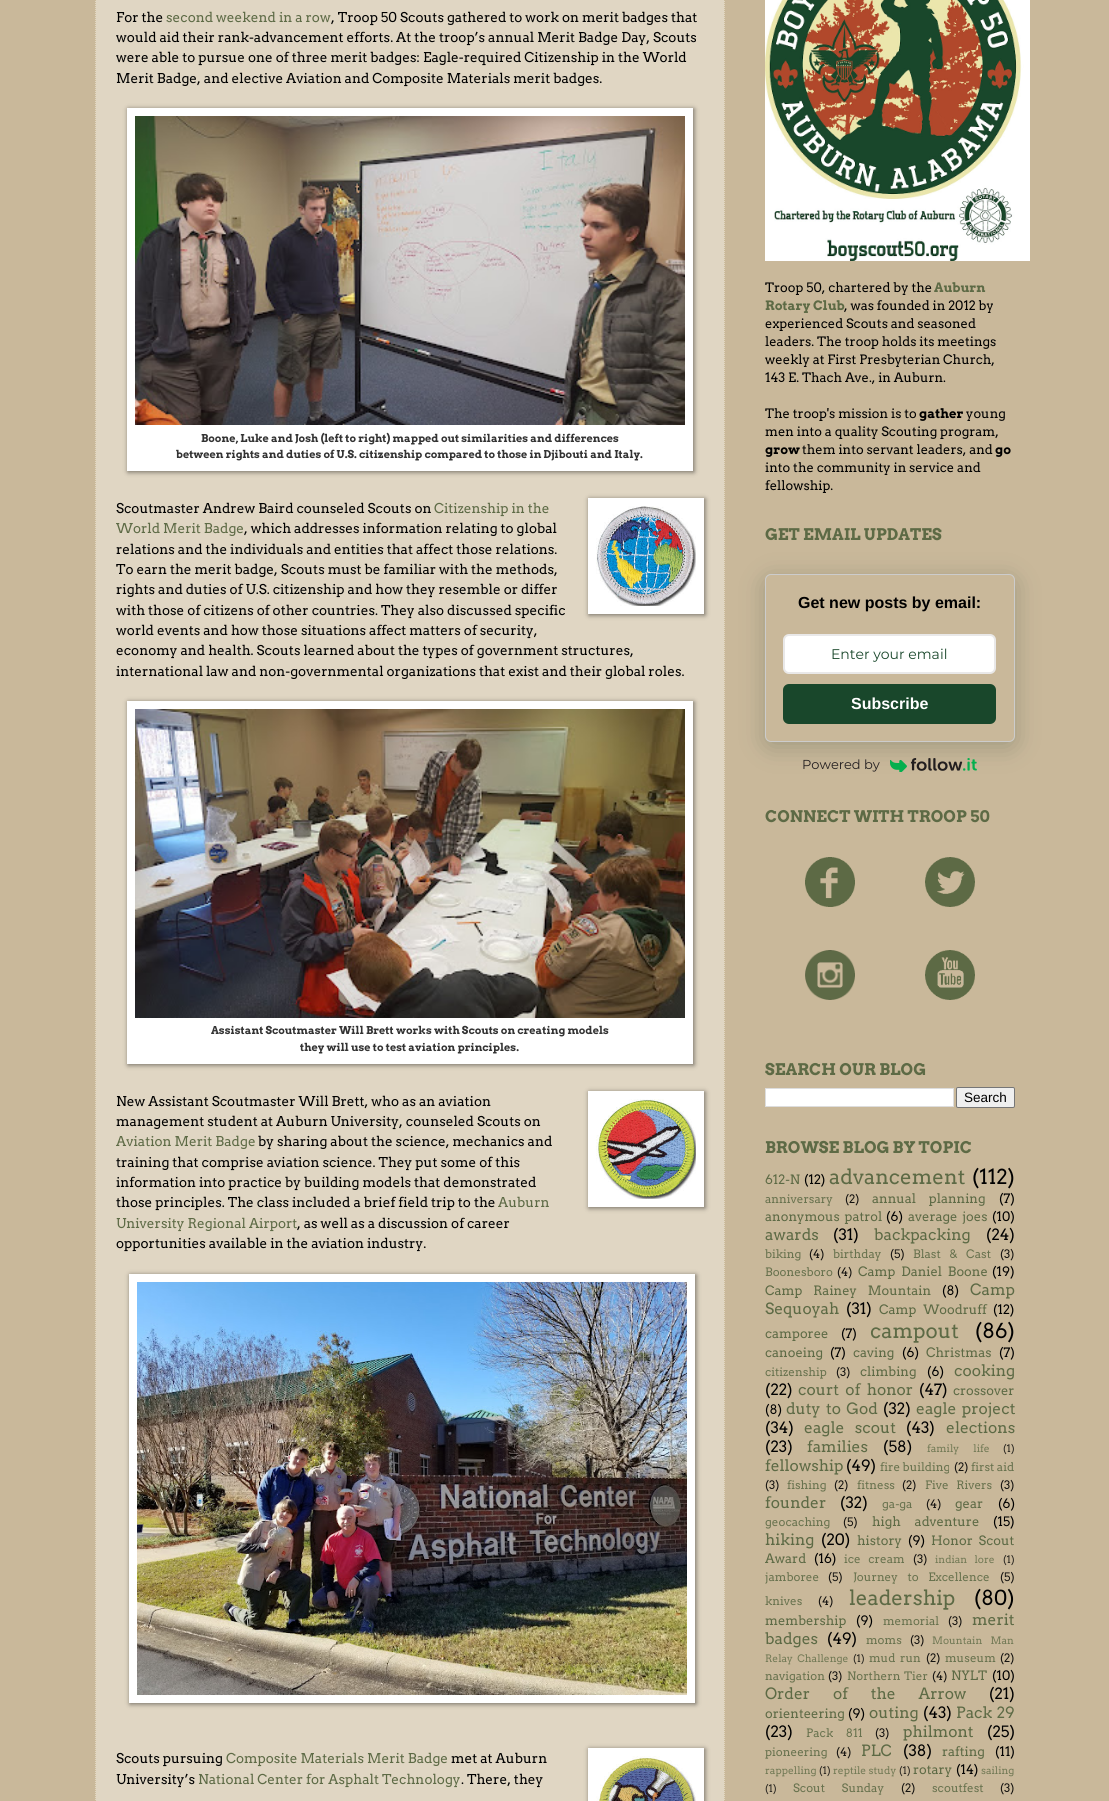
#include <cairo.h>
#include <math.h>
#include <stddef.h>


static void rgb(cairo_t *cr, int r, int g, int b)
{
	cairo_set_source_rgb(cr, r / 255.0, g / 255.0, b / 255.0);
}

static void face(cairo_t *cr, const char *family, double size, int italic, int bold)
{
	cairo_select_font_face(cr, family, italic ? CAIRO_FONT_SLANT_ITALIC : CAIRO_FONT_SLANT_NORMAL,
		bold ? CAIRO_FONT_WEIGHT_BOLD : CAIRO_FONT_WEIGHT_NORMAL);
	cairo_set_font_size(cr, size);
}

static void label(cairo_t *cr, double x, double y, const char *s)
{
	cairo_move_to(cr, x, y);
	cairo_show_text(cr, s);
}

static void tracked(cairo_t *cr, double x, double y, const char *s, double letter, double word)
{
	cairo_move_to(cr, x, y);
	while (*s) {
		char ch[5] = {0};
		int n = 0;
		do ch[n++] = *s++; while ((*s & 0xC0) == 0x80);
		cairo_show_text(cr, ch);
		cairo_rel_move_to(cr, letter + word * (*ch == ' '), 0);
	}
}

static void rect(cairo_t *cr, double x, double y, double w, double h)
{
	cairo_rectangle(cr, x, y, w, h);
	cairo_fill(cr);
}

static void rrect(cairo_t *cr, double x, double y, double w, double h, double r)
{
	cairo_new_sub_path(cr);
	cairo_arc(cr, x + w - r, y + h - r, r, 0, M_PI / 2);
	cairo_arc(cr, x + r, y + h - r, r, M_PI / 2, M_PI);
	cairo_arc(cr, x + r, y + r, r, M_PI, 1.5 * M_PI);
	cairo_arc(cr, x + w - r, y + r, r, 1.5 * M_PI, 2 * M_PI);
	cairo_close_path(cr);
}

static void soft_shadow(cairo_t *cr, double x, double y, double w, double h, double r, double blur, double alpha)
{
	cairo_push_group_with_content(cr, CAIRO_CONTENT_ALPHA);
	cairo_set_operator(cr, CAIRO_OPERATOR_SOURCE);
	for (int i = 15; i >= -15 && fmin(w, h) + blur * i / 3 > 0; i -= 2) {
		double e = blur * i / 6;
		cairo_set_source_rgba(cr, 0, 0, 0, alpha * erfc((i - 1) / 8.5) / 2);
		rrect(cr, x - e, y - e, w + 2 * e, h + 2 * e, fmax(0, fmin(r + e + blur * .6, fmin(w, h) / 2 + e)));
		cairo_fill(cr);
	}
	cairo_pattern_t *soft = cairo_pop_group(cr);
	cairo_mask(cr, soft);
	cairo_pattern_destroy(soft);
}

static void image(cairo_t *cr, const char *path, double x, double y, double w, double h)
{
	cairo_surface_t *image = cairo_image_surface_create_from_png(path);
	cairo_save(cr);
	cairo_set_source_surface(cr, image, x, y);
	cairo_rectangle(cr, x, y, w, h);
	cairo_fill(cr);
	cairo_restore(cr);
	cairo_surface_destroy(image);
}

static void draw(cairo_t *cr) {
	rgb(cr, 201, 184, 154);
	cairo_paint(cr);
	rgb(cr, 224, 214, 195);
	rect(cr, 95, 0, 630, 1801);
	cairo_new_path(cr);
	cairo_move_to(cr, 724.5, -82);
	cairo_line_to(cr, 724.5, 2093);
	rgb(cr, 204, 187, 153);
	cairo_set_line_width(cr, 1);
	cairo_set_dash(cr, (double[]){1, 1}, 2, 0);
	cairo_stroke(cr);
	cairo_new_path(cr);
	cairo_move_to(cr, 95.5, -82);
	cairo_line_to(cr, 95.5, 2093);
	cairo_stroke(cr);
	face(cr, "Arvo", 13.5, 0, 0);
	rgb(cr, 0, 0, 0);
	label(cr, 116, 22, "For the");
	rgb(cr, 93, 106, 69);
	label(cr, 166, 22, "second weekend in a row");
	rgb(cr, 0, 0, 0);
	label(cr, 331, 22, ", Troop 50 Scouts gathered to work on merit badges that");
	label(cr, 116, 42, "would aid their rank-advancement efforts. At the troop’s annual Merit Badge Day, Scouts");
	label(cr, 116, 62, "were able to pursue one of three merit badges: Eagle-required Citizenship in the World");
	label(cr, 116, 83, "Merit Badge, and elective Aviation and Composite Materials merit badges.");
	rgb(cr, 0, 0, 0);
	soft_shadow(cr, 128, 109, 566, 363, 0, 2.5, 0.5);
	rgb(cr, 255, 255, 255);
	rect(cr, 127, 108, 566, 363);
	image(cr, "image0.png", 135, 116, 550, 309);
	face(cr, "Arvo", 10.8, 0, 1);
	rgb(cr, 51, 51, 51);
	label(cr, 201, 442, "Boone, Luke and Josh (left to right) mapped out similarities and differences");
	label(cr, 176, 458, "between rights and duties of U.S. citizenship compared to those in Djibouti and Italy.");
	face(cr, "Arvo", 13.5, 0, 0);
	rgb(cr, 0, 0, 0);
	label(cr, 116, 513, "Scoutmaster Andrew Baird counseled Scouts on");
	rgb(cr, 93, 106, 69);
	label(cr, 434, 513, "Citizenship in the");
	rgb(cr, 0, 0, 0);
	soft_shadow(cr, 589, 499, 116, 116, 0, 2.5, 0.5);
	rgb(cr, 255, 255, 255);
	rect(cr, 588, 498, 116, 116);
	image(cr, "image1.png", 596, 506, 100, 100);
	rgb(cr, 93, 106, 69);
	label(cr, 116, 533, "World Merit Badge");
	rgb(cr, 0, 0, 0);
	label(cr, 244, 533, ", which addresses information relating to global");
	label(cr, 116, 554, "relations and the individuals and entities that affect those relations.");
	label(cr, 116, 574, "To earn the merit badge, Scouts must be familiar with the methods,");
	label(cr, 116, 594, "rights and duties of U.S. citizenship and how they resemble or differ");
	label(cr, 116, 615, "with those of citizens of other countries. They also discussed specific");
	label(cr, 116, 635, "world events and how those situations affect matters of security,");
	label(cr, 116, 655, "economy and health. Scouts learned about the types of government structures,");
	label(cr, 116, 676, "international law and non-governmental organizations that exist and their global roles.");
	rgb(cr, 0, 0, 0);
	soft_shadow(cr, 128, 702, 566, 363, 0, 2.5, 0.5);
	rgb(cr, 255, 255, 255);
	rect(cr, 127, 701, 566, 363);
	image(cr, "image2.png", 135, 709, 550, 309);
	face(cr, "Arvo", 10.8, 0, 1);
	rgb(cr, 51, 51, 51);
	label(cr, 211, 1034, "Assistant Scoutmaster Will Brett works with Scouts on creating models");
	label(cr, 300, 1051, "they will use to test aviation principles.");
	face(cr, "Arvo", 13.5, 0, 0);
	rgb(cr, 0, 0, 0);
	label(cr, 116, 1106, "New Assistant Scoutmaster Will Brett, who as an aviation");
	rgb(cr, 0, 0, 0);
	soft_shadow(cr, 589, 1092, 116, 116, 0, 2.5, 0.5);
	rgb(cr, 255, 255, 255);
	rect(cr, 588, 1091, 116, 116);
	image(cr, "image3.png", 596, 1099, 100, 100);
	rgb(cr, 0, 0, 0);
	label(cr, 116, 1126, "management student at Auburn University, counseled Scouts on");
	rgb(cr, 93, 106, 69);
	label(cr, 116, 1146, "Aviation Merit Badge");
	rgb(cr, 0, 0, 0);
	label(cr, 258, 1146, "by sharing about the science, mechanics and");
	label(cr, 116, 1167, "training that comprise aviation science. They put some of this");
	label(cr, 116, 1187, "information into practice by building models that demonstrated");
	label(cr, 116, 1207, "those principles. The class included a brief field trip to the");
	rgb(cr, 93, 106, 69);
	label(cr, 498, 1207, "Auburn");
	label(cr, 116, 1228, "University Regional Airport");
	rgb(cr, 0, 0, 0);
	label(cr, 297, 1228, ", as well as a discussion of career");
	label(cr, 116, 1248, "opportunities available in the aviation industry.");
	rgb(cr, 0, 0, 0);
	soft_shadow(cr, 130, 1275, 566, 429, 0, 2.5, 0.5);
	rgb(cr, 255, 255, 255);
	rect(cr, 129, 1274, 566, 429);
	image(cr, "image4.png", 137, 1282, 550, 413);
	rgb(cr, 0, 0, 0);
	label(cr, 116, 1763, "Scouts pursuing");
	rgb(cr, 93, 106, 69);
	label(cr, 226, 1763, "Composite Materials Merit Badge");
	rgb(cr, 0, 0, 0);
	label(cr, 451, 1763, "met at Auburn");
	rgb(cr, 0, 0, 0);
	soft_shadow(cr, 589, 1749, 116, 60, 0, 2.5, 0.5);
	rgb(cr, 255, 255, 255);
	rect(cr, 588, 1748, 116, 53);
	image(cr, "image5.png", 596, 1756, 100, 45);
	rgb(cr, 0, 0, 0);
	label(cr, 116, 1784, "University’s");
	rgb(cr, 93, 106, 69);
	label(cr, 198, 1784, "National Center for Asphalt Technology");
	rgb(cr, 0, 0, 0);
	label(cr, 461, 1784, ". There, they");
	image(cr, "image6.png", 765, 0, 265, 261);
	face(cr, "Arvo", 12.9, 0, 0);
	label(cr, 765, 292, "Troop 50, chartered by the");
	face(cr, "Arvo", 12.9, 0, 1);
	rgb(cr, 93, 106, 69);
	label(cr, 934, 292, "Auburn");
	label(cr, 765, 310, "Rotary Club");
	face(cr, "Arvo", 12.9, 0, 0);
	rgb(cr, 0, 0, 0);
	label(cr, 844, 310, ", was founded in 2012 by");
	label(cr, 765, 328, "experienced Scouts and seasoned");
	label(cr, 765, 346, "leaders. The troop holds its meetings");
	label(cr, 765, 364, "weekly at First Presbyterian Church,");
	label(cr, 765, 382, "143 E. Thach Ave., in Auburn.");
	label(cr, 765, 418, "The troop's mission is to");
	face(cr, "Arvo", 12.9, 0, 1);
	label(cr, 919, 418, "gather");
	face(cr, "Arvo", 12.9, 0, 0);
	label(cr, 966, 418, "young");
	label(cr, 765, 436, "men into a quality Scouting program,");
	face(cr, "Arvo", 12.9, 0, 1);
	label(cr, 765, 454, "grow");
	face(cr, "Arvo", 12.9, 0, 0);
	label(cr, 802, 454, "them into servant leaders, and");
	face(cr, "Arvo", 12.9, 0, 1);
	label(cr, 995, 454, "go");
	face(cr, "Arvo", 12.9, 0, 0);
	label(cr, 765, 472, "into the community in service and");
	label(cr, 765, 490, "fellowship.");
	face(cr, "Arvo", 16, 0, 1);
	rgb(cr, 93, 106, 69);
	label(cr, 765, 540, "GET EMAIL UPDATES");
	rgb(cr, 34, 60, 47);
	soft_shadow(cr, 765, 579, 250, 168, 6, 12.5, 0.25);
	rgb(cr, 201, 184, 154);
	rrect(cr, 765.5, 574.5, 249, 167, 5.5);
	cairo_fill_preserve(cr);
	rgb(cr, 204, 204, 204);
	cairo_set_dash(cr, NULL, 0, 0);
	cairo_stroke(cr);
	face(cr, "Liberation Sans", 16, 0, 1);
	rgb(cr, 0, 0, 0);
	label(cr, 798, 608, "Get new posts by email:");
	rgb(cr, 255, 255, 255);
	rrect(cr, 784, 635, 211, 38, 5);
	cairo_fill_preserve(cr);
	rgb(cr, 233, 232, 232);
	cairo_set_line_width(cr, 2);
	cairo_stroke(cr);
	face(cr, "Montserrat", 14, 0, 0);
	rgb(cr, 25, 71, 43);
	label(cr, 831, 659, "Enter your email");
	rrect(cr, 783, 684, 213, 40, 6);
	cairo_fill(cr);
	face(cr, "Liberation Sans", 16, 0, 1);
	rgb(cr, 255, 255, 255);
	label(cr, 851, 709, "Subscribe");
	face(cr, "Montserrat", 13, 0, 0);
	rgb(cr, 35, 31, 32);
	label(cr, 802, 769, "Powered by");
	image(cr, "image7.png", 890, 758, 87, 14);
	face(cr, "Arvo", 16, 0, 1);
	rgb(cr, 93, 106, 69);
	label(cr, 765, 822, "CONNECT WITH TROOP 50");
	image(cr, "image8.png", 805, 857, 50, 50);
	image(cr, "image9.png", 925, 857, 50, 50);
	image(cr, "image10.png", 805, 950, 50, 50);
	image(cr, "image11.png", 925, 950, 50, 50);
	label(cr, 765, 1075, "SEARCH OUR BLOG");
	rgb(cr, 255, 255, 255);
	cairo_rectangle(cr, 765.5, 1088.5, 188, 18);
	cairo_fill_preserve(cr);
	rgb(cr, 221, 221, 221);
	cairo_set_line_width(cr, 1);
	cairo_stroke(cr);
	rgb(cr, 239, 239, 239);
	rrect(cr, 956.5, 1087.5, 58, 20, 1.5);
	cairo_fill_preserve(cr);
	rgb(cr, 118, 118, 118);
	cairo_stroke(cr);
	face(cr, "Liberation Sans", 13.5, 0, 0);
	rgb(cr, 0, 0, 0);
	label(cr, 964, 1102, "Search");
	face(cr, "Arvo", 16, 0, 1);
	rgb(cr, 93, 106, 69);
	label(cr, 765, 1153, "BROWSE BLOG BY TOPIC");
	face(cr, "Arvo", 12.9, 0, 0);
	label(cr, 765, 1184, "612-N");
	rgb(cr, 0, 0, 0);
	label(cr, 804, 1184, "(12)");
	face(cr, "Arvo", 20.5, 0, 0);
	rgb(cr, 93, 106, 69);
	label(cr, 829, 1184, "advancement");
	rgb(cr, 0, 0, 0);
	label(cr, 972, 1184, "(112)");
	face(cr, "Arvo", 11.6, 0, 0);
	rgb(cr, 104, 114, 78);
	label(cr, 765, 1203, "anniversary");
	rgb(cr, 20, 18, 15);
	label(cr, 845, 1203, "(2)");
	face(cr, "Arvo", 12.9, 0, 0);
	rgb(cr, 93, 106, 69);
	tracked(cr, 872, 1203, "annual planning", 0, 10);
	rgb(cr, 0, 0, 0);
	label(cr, 999, 1203, "(7)");
	rgb(cr, 93, 106, 69);
	tracked(cr, 765, 1221, "anonymous patrol", 0, 2);
	rgb(cr, 0, 0, 0);
	label(cr, 886, 1221, "(6)");
	rgb(cr, 93, 106, 69);
	tracked(cr, 908, 1221, "average joes", 0, 2);
	rgb(cr, 0, 0, 0);
	label(cr, 992, 1221, "(10)");
	face(cr, "Arvo", 15.5, 0, 0);
	rgb(cr, 93, 106, 69);
	label(cr, 765, 1240, "awards");
	rgb(cr, 0, 0, 0);
	label(cr, 833, 1240, "(31)");
	rgb(cr, 93, 106, 69);
	label(cr, 874, 1240, "backpacking");
	rgb(cr, 0, 0, 0);
	label(cr, 986, 1240, "(24)");
	face(cr, "Arvo", 11.6, 0, 0);
	rgb(cr, 104, 114, 78);
	label(cr, 765, 1258, "biking");
	rgb(cr, 20, 18, 15);
	label(cr, 809, 1258, "(4)");
	rgb(cr, 104, 114, 78);
	label(cr, 833, 1258, "birthday");
	rgb(cr, 20, 18, 15);
	label(cr, 890, 1258, "(5)");
	rgb(cr, 104, 114, 78);
	tracked(cr, 913, 1258, "Blast & Cast", 0, 6);
	rgb(cr, 20, 18, 15);
	label(cr, 1000, 1258, "(3)");
	rgb(cr, 104, 114, 78);
	label(cr, 765, 1276, "Boonesboro");
	rgb(cr, 20, 18, 15);
	label(cr, 837, 1276, "(4)");
	face(cr, "Arvo", 12.9, 0, 0);
	rgb(cr, 93, 106, 69);
	tracked(cr, 858, 1276, "Camp Daniel Boone", 0, 3);
	rgb(cr, 0, 0, 0);
	label(cr, 992, 1276, "(19)");
	rgb(cr, 93, 106, 69);
	tracked(cr, 765, 1295, "Camp Rainey Mountain", 0, 8);
	rgb(cr, 0, 0, 0);
	label(cr, 942, 1295, "(8)");
	face(cr, "Arvo", 15.5, 0, 0);
	rgb(cr, 93, 106, 69);
	label(cr, 970, 1295, "Camp");
	label(cr, 765, 1314, "Sequoyah");
	rgb(cr, 0, 0, 0);
	label(cr, 846, 1314, "(31)");
	face(cr, "Arvo", 12.9, 0, 0);
	rgb(cr, 93, 106, 69);
	tracked(cr, 879, 1314, "Camp Woodruff", 0, 4);
	rgb(cr, 0, 0, 0);
	label(cr, 993, 1314, "(12)");
	rgb(cr, 93, 106, 69);
	label(cr, 765, 1338, "camporee");
	rgb(cr, 0, 0, 0);
	label(cr, 841, 1338, "(7)");
	face(cr, "Arvo", 20.5, 0, 0);
	rgb(cr, 93, 106, 69);
	label(cr, 870, 1338, "campout");
	rgb(cr, 0, 0, 0);
	label(cr, 975, 1338, "(86)");
	face(cr, "Arvo", 12.9, 0, 0);
	rgb(cr, 93, 106, 69);
	label(cr, 765, 1357, "canoeing");
	rgb(cr, 0, 0, 0);
	label(cr, 830, 1357, "(7)");
	rgb(cr, 93, 106, 69);
	label(cr, 853, 1357, "caving");
	rgb(cr, 0, 0, 0);
	label(cr, 902, 1357, "(6)");
	rgb(cr, 93, 106, 69);
	label(cr, 926, 1357, "Christmas");
	rgb(cr, 0, 0, 0);
	label(cr, 999, 1357, "(7)");
	face(cr, "Arvo", 11.6, 0, 0);
	rgb(cr, 104, 114, 78);
	label(cr, 765, 1376, "citizenship");
	rgb(cr, 20, 18, 15);
	label(cr, 836, 1376, "(3)");
	face(cr, "Arvo", 12.9, 0, 0);
	rgb(cr, 93, 106, 69);
	label(cr, 860, 1376, "climbing");
	rgb(cr, 0, 0, 0);
	label(cr, 927, 1376, "(6)");
	face(cr, "Arvo", 15.5, 0, 0);
	rgb(cr, 93, 106, 69);
	label(cr, 954, 1376, "cooking");
	rgb(cr, 0, 0, 0);
	label(cr, 765, 1395, "(22)");
	rgb(cr, 93, 106, 69);
	tracked(cr, 798, 1395, "court of honor", 0, 3);
	rgb(cr, 0, 0, 0);
	label(cr, 919, 1395, "(47)");
	face(cr, "Arvo", 12.9, 0, 0);
	rgb(cr, 93, 106, 69);
	label(cr, 953, 1395, "crossover");
	rgb(cr, 0, 0, 0);
	label(cr, 765, 1414, "(8)");
	face(cr, "Arvo", 15.5, 0, 0);
	rgb(cr, 93, 106, 69);
	tracked(cr, 786, 1414, "duty to God", 0, 2);
	rgb(cr, 0, 0, 0);
	label(cr, 883, 1414, "(32)");
	rgb(cr, 93, 106, 69);
	tracked(cr, 916, 1414, "eagle project", 0, 2);
	rgb(cr, 0, 0, 0);
	label(cr, 765, 1433, "(34)");
	rgb(cr, 93, 106, 69);
	tracked(cr, 804, 1433, "eagle scout", 0, 7);
	rgb(cr, 0, 0, 0);
	label(cr, 906, 1433, "(43)");
	rgb(cr, 93, 106, 69);
	label(cr, 946, 1433, "elections");
	rgb(cr, 0, 0, 0);
	label(cr, 765, 1452, "(23)");
	rgb(cr, 93, 106, 69);
	label(cr, 807, 1452, "families");
	rgb(cr, 0, 0, 0);
	label(cr, 883, 1452, "(58)");
	face(cr, "Arvo", 10.25, 0, 0);
	rgb(cr, 115, 122, 86);
	tracked(cr, 927, 1452, "family life", 0, 12);
	rgb(cr, 40, 37, 31);
	label(cr, 1003, 1452, "(1)");
	face(cr, "Arvo", 15.5, 0, 0);
	rgb(cr, 93, 106, 69);
	label(cr, 765, 1471, "fellowship");
	rgb(cr, 0, 0, 0);
	label(cr, 846, 1471, "(49)");
	face(cr, "Arvo", 11.6, 0, 0);
	rgb(cr, 104, 114, 78);
	label(cr, 880, 1471, "fire building");
	rgb(cr, 20, 18, 15);
	label(cr, 954, 1471, "(2)");
	rgb(cr, 104, 114, 78);
	label(cr, 971, 1471, "first aid");
	rgb(cr, 20, 18, 15);
	label(cr, 765, 1489, "(3)");
	rgb(cr, 104, 114, 78);
	label(cr, 787, 1489, "fishing");
	rgb(cr, 20, 18, 15);
	label(cr, 834, 1489, "(2)");
	rgb(cr, 104, 114, 78);
	label(cr, 857, 1489, "fitness");
	rgb(cr, 20, 18, 15);
	label(cr, 902, 1489, "(2)");
	rgb(cr, 104, 114, 78);
	tracked(cr, 925, 1489, "Five Rivers", 0, 5);
	rgb(cr, 20, 18, 15);
	label(cr, 1000, 1489, "(3)");
	face(cr, "Arvo", 15.5, 0, 0);
	rgb(cr, 93, 106, 69);
	label(cr, 765, 1508, "founder");
	rgb(cr, 0, 0, 0);
	label(cr, 840, 1508, "(32)");
	face(cr, "Arvo", 11.6, 0, 0);
	rgb(cr, 104, 114, 78);
	label(cr, 882, 1508, "ga-ga");
	rgb(cr, 20, 18, 15);
	label(cr, 926, 1508, "(4)");
	face(cr, "Arvo", 12.9, 0, 0);
	rgb(cr, 93, 106, 69);
	label(cr, 955, 1508, "gear");
	rgb(cr, 0, 0, 0);
	label(cr, 998, 1508, "(6)");
	face(cr, "Arvo", 11.6, 0, 0);
	rgb(cr, 104, 114, 78);
	label(cr, 765, 1526, "geocaching");
	rgb(cr, 20, 18, 15);
	label(cr, 843, 1526, "(5)");
	face(cr, "Arvo", 12.9, 0, 0);
	rgb(cr, 93, 106, 69);
	tracked(cr, 872, 1526, "high adventure", 0, 11);
	rgb(cr, 0, 0, 0);
	label(cr, 993, 1526, "(15)");
	face(cr, "Arvo", 15.5, 0, 0);
	rgb(cr, 93, 106, 69);
	label(cr, 765, 1545, "hiking");
	rgb(cr, 0, 0, 0);
	label(cr, 821, 1545, "(20)");
	face(cr, "Arvo", 12.9, 0, 0);
	rgb(cr, 93, 106, 69);
	label(cr, 857, 1545, "history");
	rgb(cr, 0, 0, 0);
	label(cr, 908, 1545, "(9)");
	rgb(cr, 93, 106, 69);
	tracked(cr, 931, 1545, "Honor Scout", 0, 3);
	label(cr, 765, 1563, "Award");
	rgb(cr, 0, 0, 0);
	label(cr, 814, 1563, "(16)");
	face(cr, "Arvo", 11.6, 0, 0);
	rgb(cr, 104, 114, 78);
	tracked(cr, 844, 1563, "ice cream", 0, 5);
	rgb(cr, 20, 18, 15);
	label(cr, 913, 1563, "(3)");
	face(cr, "Arvo", 10.25, 0, 0);
	rgb(cr, 115, 122, 86);
	tracked(cr, 935, 1563, "indian lore", 0, 5);
	rgb(cr, 40, 37, 31);
	label(cr, 1003, 1563, "(1)");
	face(cr, "Arvo", 11.6, 0, 0);
	rgb(cr, 104, 114, 78);
	label(cr, 765, 1581, "jamboree");
	rgb(cr, 20, 18, 15);
	label(cr, 828, 1581, "(5)");
	rgb(cr, 104, 114, 78);
	tracked(cr, 853, 1581, "Journey to Excellence", 0, 7);
	rgb(cr, 20, 18, 15);
	label(cr, 1000, 1581, "(5)");
	rgb(cr, 104, 114, 78);
	label(cr, 765, 1605, "knives");
	rgb(cr, 20, 18, 15);
	label(cr, 818, 1605, "(4)");
	face(cr, "Arvo", 20.5, 0, 0);
	rgb(cr, 93, 106, 69);
	label(cr, 849, 1605, "leadership");
	rgb(cr, 0, 0, 0);
	label(cr, 974, 1605, "(80)");
	face(cr, "Arvo", 12.9, 0, 0);
	rgb(cr, 93, 106, 69);
	label(cr, 765, 1625, "membership");
	rgb(cr, 0, 0, 0);
	label(cr, 856, 1625, "(9)");
	face(cr, "Arvo", 11.6, 0, 0);
	rgb(cr, 104, 114, 78);
	label(cr, 883, 1625, "memorial");
	rgb(cr, 20, 18, 15);
	label(cr, 948, 1625, "(3)");
	face(cr, "Arvo", 15.5, 0, 0);
	rgb(cr, 93, 106, 69);
	label(cr, 972, 1625, "merit");
	label(cr, 765, 1644, "badges");
	rgb(cr, 0, 0, 0);
	label(cr, 827, 1644, "(49)");
	face(cr, "Arvo", 11.6, 0, 0);
	rgb(cr, 104, 114, 78);
	label(cr, 866, 1644, "moms");
	rgb(cr, 20, 18, 15);
	label(cr, 910, 1644, "(3)");
	face(cr, "Arvo", 10.25, 0, 0);
	rgb(cr, 115, 122, 86);
	tracked(cr, 932, 1644, "Mountain Man", 0, 6);
	tracked(cr, 765, 1662, "Relay Challenge", 0, 2);
	rgb(cr, 40, 37, 31);
	label(cr, 853, 1662, "(1)");
	face(cr, "Arvo", 11.6, 0, 0);
	rgb(cr, 104, 114, 78);
	tracked(cr, 869, 1662, "mud run", 0, 2);
	rgb(cr, 20, 18, 15);
	label(cr, 926, 1662, "(2)");
	rgb(cr, 104, 114, 78);
	label(cr, 945, 1662, "museum");
	rgb(cr, 20, 18, 15);
	label(cr, 1000, 1662, "(2)");
	rgb(cr, 104, 114, 78);
	label(cr, 765, 1680, "navigation");
	rgb(cr, 20, 18, 15);
	label(cr, 828, 1680, "(3)");
	rgb(cr, 104, 114, 78);
	tracked(cr, 847, 1680, "Northern Tier", 0, 1);
	rgb(cr, 20, 18, 15);
	label(cr, 932, 1680, "(4)");
	face(cr, "Arvo", 12.9, 0, 0);
	rgb(cr, 93, 106, 69);
	label(cr, 951, 1680, "NYLT");
	rgb(cr, 0, 0, 0);
	label(cr, 992, 1680, "(10)");
	face(cr, "Arvo", 15.5, 0, 0);
	rgb(cr, 93, 106, 69);
	tracked(cr, 765, 1699, "Order of the Arrow", 0, 19.5);
	rgb(cr, 0, 0, 0);
	label(cr, 989, 1699, "(21)");
	face(cr, "Arvo", 12.9, 0, 0);
	rgb(cr, 93, 106, 69);
	label(cr, 765, 1718, "orienteering");
	rgb(cr, 0, 0, 0);
	label(cr, 848, 1718, "(9)");
	face(cr, "Arvo", 15.5, 0, 0);
	rgb(cr, 93, 106, 69);
	label(cr, 869, 1718, "outing");
	rgb(cr, 0, 0, 0);
	label(cr, 923, 1718, "(43)");
	rgb(cr, 93, 106, 69);
	tracked(cr, 956, 1718, "Pack 29", 0, 1);
	rgb(cr, 0, 0, 0);
	label(cr, 765, 1737, "(23)");
	face(cr, "Arvo", 11.6, 0, 0);
	rgb(cr, 104, 114, 78);
	tracked(cr, 806, 1737, "Pack 811", 0, 10);
	rgb(cr, 20, 18, 15);
	label(cr, 875, 1737, "(3)");
	face(cr, "Arvo", 15.5, 0, 0);
	rgb(cr, 93, 106, 69);
	label(cr, 903, 1737, "philmont");
	rgb(cr, 0, 0, 0);
	label(cr, 987, 1737, "(25)");
	face(cr, "Arvo", 11.6, 0, 0);
	rgb(cr, 104, 114, 78);
	label(cr, 765, 1756, "pioneering");
	rgb(cr, 20, 18, 15);
	label(cr, 836, 1756, "(4)");
	face(cr, "Arvo", 15.5, 0, 0);
	rgb(cr, 93, 106, 69);
	label(cr, 861, 1756, "PLC");
	rgb(cr, 0, 0, 0);
	label(cr, 903, 1756, "(38)");
	face(cr, "Arvo", 12.9, 0, 0);
	rgb(cr, 93, 106, 69);
	label(cr, 942, 1756, "rafting");
	rgb(cr, 0, 0, 0);
	label(cr, 995, 1756, "(11)");
	face(cr, "Arvo", 10.25, 0, 0);
	rgb(cr, 115, 122, 86);
	label(cr, 765, 1774, "rappelling");
	rgb(cr, 40, 37, 31);
	label(cr, 819, 1774, "(1)");
	rgb(cr, 115, 122, 86);
	label(cr, 833, 1774, "reptile study");
	rgb(cr, 40, 37, 31);
	label(cr, 899, 1774, "(1)");
	face(cr, "Arvo", 12.9, 0, 0);
	rgb(cr, 93, 106, 69);
	label(cr, 913, 1774, "rotary");
	rgb(cr, 0, 0, 0);
	label(cr, 956, 1774, "(14)");
	face(cr, "Arvo", 10.25, 0, 0);
	rgb(cr, 115, 122, 86);
	label(cr, 981, 1774, "sailing");
	rgb(cr, 40, 37, 31);
	label(cr, 765, 1792, "(1)");
	face(cr, "Arvo", 11.6, 0, 0);
	rgb(cr, 104, 114, 78);
	tracked(cr, 793, 1792, "Scout Sunday", 0, 14);
	rgb(cr, 20, 18, 15);
	label(cr, 901, 1792, "(2)");
	rgb(cr, 104, 114, 78);
	label(cr, 932, 1792, "scoutfest");
	rgb(cr, 20, 18, 15);
	label(cr, 1000, 1792, "(3)");
}

int main(void) {
	cairo_surface_t *surface = cairo_image_surface_create(CAIRO_FORMAT_RGB24, 1109, 1801);
	cairo_t *cr = cairo_create(surface);
	cairo_font_options_t *options = cairo_font_options_create();
	cairo_font_options_set_hint_metrics(options, CAIRO_HINT_METRICS_OFF);
	cairo_font_options_set_hint_style(options, CAIRO_HINT_STYLE_NONE);
	cairo_set_font_options(cr, options);
	cairo_set_miter_limit(cr, 4);
	draw(cr);
	cairo_surface_write_to_png(surface, "render.png");
	cairo_font_options_destroy(options);
	cairo_destroy(cr);
	cairo_surface_destroy(surface);
	return 0;
}
